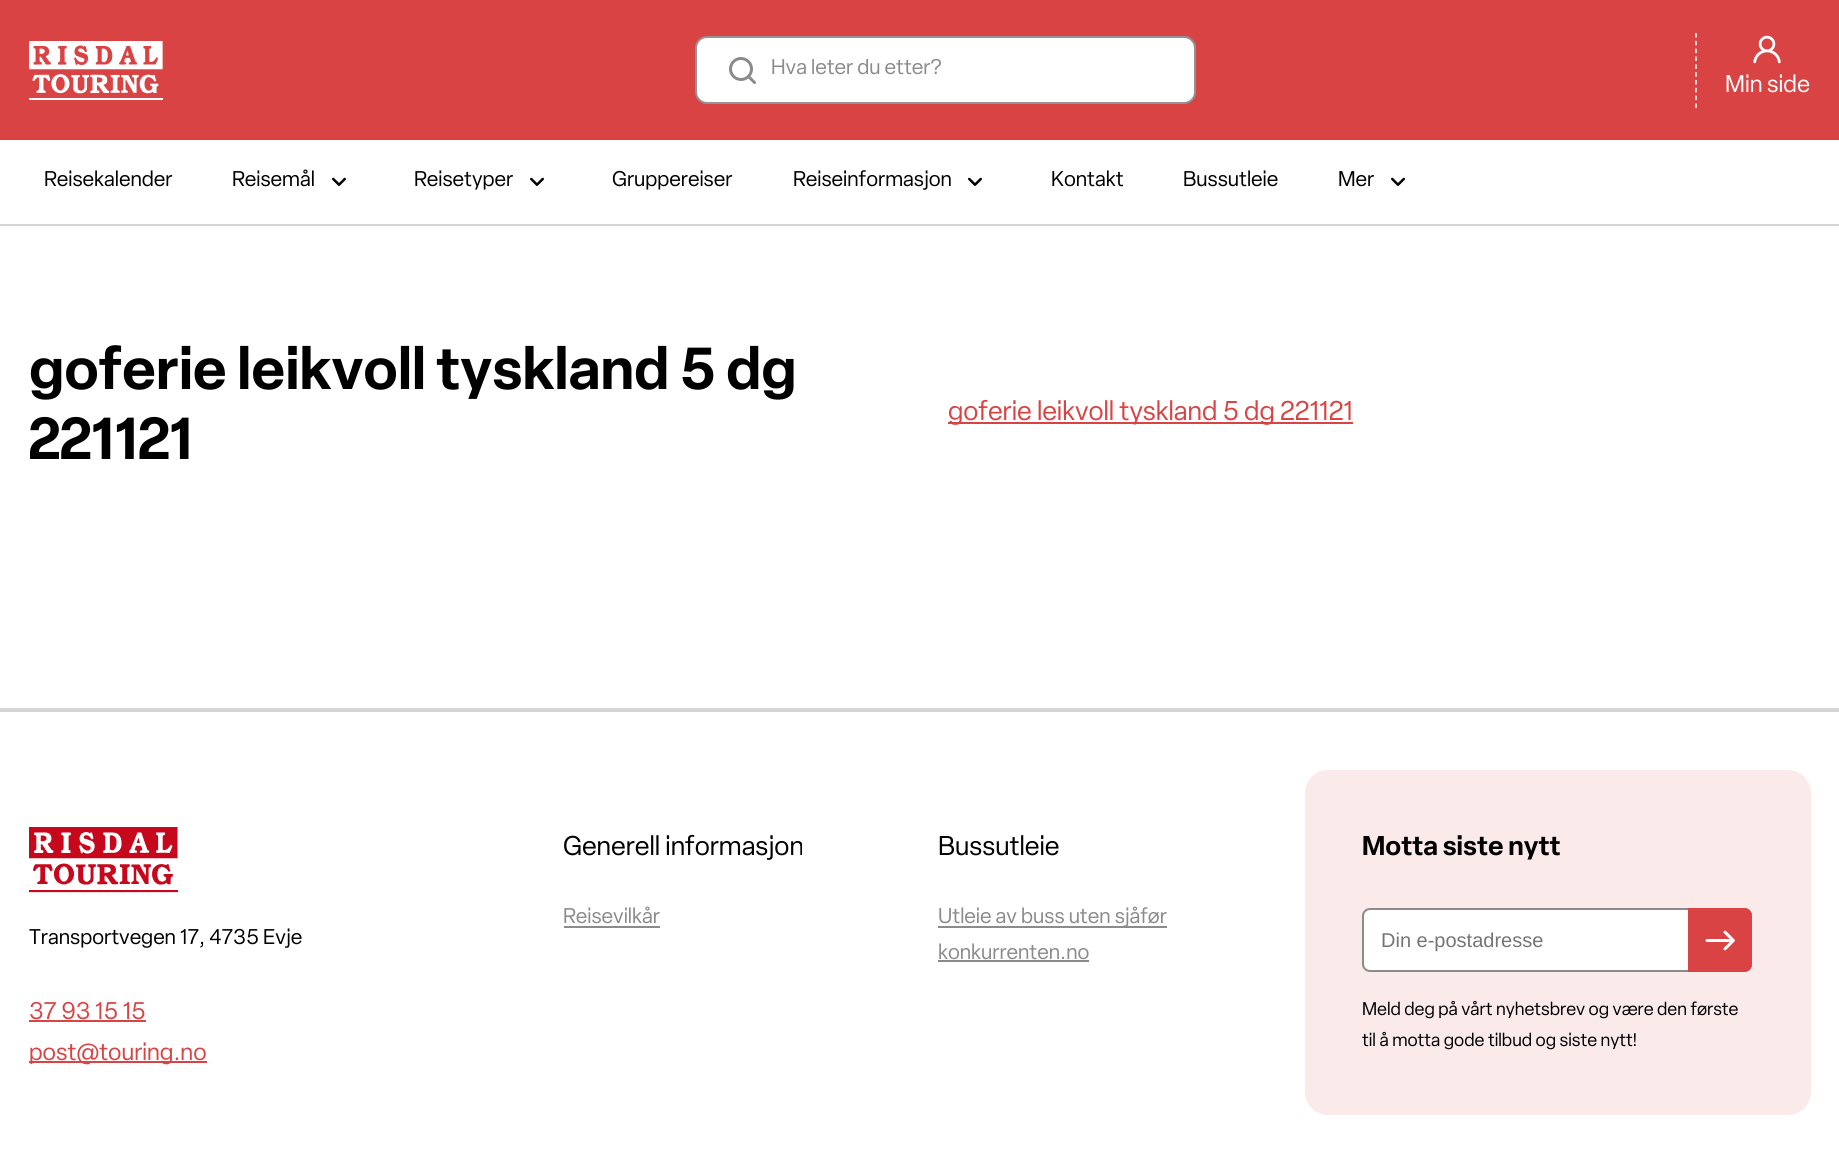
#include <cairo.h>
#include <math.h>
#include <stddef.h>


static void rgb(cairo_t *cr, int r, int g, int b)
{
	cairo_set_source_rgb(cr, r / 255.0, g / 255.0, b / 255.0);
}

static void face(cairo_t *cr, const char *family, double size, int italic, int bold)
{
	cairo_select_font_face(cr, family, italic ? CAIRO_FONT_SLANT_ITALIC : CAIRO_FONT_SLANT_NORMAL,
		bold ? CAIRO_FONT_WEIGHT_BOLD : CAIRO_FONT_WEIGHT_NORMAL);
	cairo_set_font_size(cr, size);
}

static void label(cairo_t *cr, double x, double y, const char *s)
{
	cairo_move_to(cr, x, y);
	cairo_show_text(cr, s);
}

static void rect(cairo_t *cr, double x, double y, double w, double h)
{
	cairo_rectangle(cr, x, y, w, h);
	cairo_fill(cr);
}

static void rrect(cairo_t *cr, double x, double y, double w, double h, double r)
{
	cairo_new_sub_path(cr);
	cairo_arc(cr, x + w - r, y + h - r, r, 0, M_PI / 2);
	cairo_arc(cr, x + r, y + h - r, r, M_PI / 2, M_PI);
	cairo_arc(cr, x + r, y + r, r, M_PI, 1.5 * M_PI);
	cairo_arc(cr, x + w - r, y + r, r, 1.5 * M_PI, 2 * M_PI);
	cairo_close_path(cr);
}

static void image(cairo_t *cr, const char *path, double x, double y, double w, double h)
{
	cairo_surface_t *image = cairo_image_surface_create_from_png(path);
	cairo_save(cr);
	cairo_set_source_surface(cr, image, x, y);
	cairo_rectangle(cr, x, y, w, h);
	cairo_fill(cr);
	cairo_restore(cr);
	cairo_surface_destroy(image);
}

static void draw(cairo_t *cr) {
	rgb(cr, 255, 255, 255);
	cairo_paint(cr);
	rgb(cr, 217, 67, 67);
	rect(cr, 0, 0, 1839, 140);
	image(cr, "image0.png", 29, 41, 134, 59);
	rgb(cr, 255, 255, 255);
	rrect(cr, 696, 37, 499, 66, 11);
	cairo_fill_preserve(cr);
	rgb(cr, 148, 148, 148);
	cairo_stroke(cr);
	image(cr, "image1.png", 729, 57, 27, 27);
	cairo_save(cr);
	cairo_rectangle(cr, 771, 59, 378, 19);
	cairo_clip(cr);
	face(cr, "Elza", 21, 0, 0);
	rgb(cr, 139, 139, 139);
	label(cr, 771, 74, "Hva leter du etter?");
	cairo_restore(cr);
	cairo_new_path(cr);
	cairo_move_to(cr, 1696, 33);
	cairo_line_to(cr, 1696, 108);
	rgb(cr, 255, 255, 255);
	cairo_set_line_width(cr, 1.5);
	cairo_set_dash(cr, (double[]){4.5, 3.33}, 2, 0);
	cairo_stroke(cr);
	image(cr, "image2.png", 1753, 35, 28, 29);
	face(cr, "Elza", 23.75, 0, 0);
	label(cr, 1725, 92, "Min side");
	rgb(cr, 213, 213, 213);
	rect(cr, 0, 224, 1839, 2);
	face(cr, "Elza", 21, 0, 0);
	rgb(cr, 0, 0, 0);
	label(cr, 44, 186, "Reisekalender");
	label(cr, 232, 186, "Reisemål");
	image(cr, "image3.png", 332, 177, 14, 9);
	label(cr, 414, 186, "Reisetyper");
	image(cr, "image3.png", 530, 177, 14, 9);
	label(cr, 612, 186, "Gruppereiser");
	label(cr, 793, 186, "Reiseinformasjon");
	image(cr, "image3.png", 968, 177, 14, 9);
	label(cr, 1051, 186, "Kontakt");
	label(cr, 1183, 186, "Bussutleie");
	label(cr, 1338, 186, "Mer");
	image(cr, "image3.png", 1391, 177, 14, 9);
	face(cr, "Elza SemiBold", 58.25, 0, 0);
	label(cr, 29, 389, "goferie leikvoll tyskland 5 dg");
	label(cr, 29, 459, "221121");
	rgb(cr, 217, 67, 67);
	rect(cr, 948, 422, 405, 2);
	face(cr, "Elza", 26.75, 0, 0);
	label(cr, 948, 420, "goferie leikvoll tyskland 5 dg 221121");
	rgb(cr, 213, 213, 213);
	rect(cr, 0, 708, 1839, 4);
	image(cr, "image4.png", 29, 827, 149, 66);
	face(cr, "Elza", 21, 0, 0);
	rgb(cr, 0, 0, 0);
	label(cr, 29, 944, "Transportvegen 17, 4735 Evje");
	face(cr, "Elza", 23.75, 0, 0);
	rgb(cr, 217, 67, 67);
	label(cr, 29, 1019, "37 93 15 15");
	rect(cr, 29, 1020, 117, 2);
	rect(cr, 29, 1061, 178, 2);
	label(cr, 29, 1060, "post@touring.no");
	face(cr, "Elza", 26.75, 0, 0);
	rgb(cr, 0, 0, 0);
	label(cr, 563, 855, "Generell informasjon");
	face(cr, "Elza", 21, 0, 0);
	rgb(cr, 139, 139, 139);
	label(cr, 563, 923, "Reisevilkår");
	rect(cr, 564, 926, 96, 2);
	face(cr, "Elza", 26.75, 0, 0);
	rgb(cr, 0, 0, 0);
	label(cr, 938, 855, "Bussutleie");
	rgb(cr, 139, 139, 139);
	rect(cr, 938, 926, 229, 2);
	face(cr, "Elza", 21, 0, 0);
	label(cr, 938, 923, "Utleie av buss uten sjåfør");
	label(cr, 938, 959, "konkurrenten.no");
	rect(cr, 938, 960, 151, 2);
	rgb(cr, 251, 234, 234);
	rrect(cr, 1305, 770, 506, 345, 23);
	cairo_fill(cr);
	face(cr, "Elza SemiBold", 26.75, 0, 0);
	rgb(cr, 0, 0, 0);
	label(cr, 1362, 855, "Motta siste nytt");
	rgb(cr, 255, 255, 255);
	rrect(cr, 1363, 909, 339, 62, 7);
	cairo_fill_preserve(cr);
	rgb(cr, 139, 139, 139);
	cairo_set_line_width(cr, 2);
	cairo_set_dash(cr, NULL, 0, 0);
	cairo_stroke(cr);
	face(cr, "Liberation Sans", 20, 0, 0);
	rgb(cr, 117, 117, 117);
	label(cr, 1381, 947, "Din e-postadresse");
	rgb(cr, 217, 67, 67);
	cairo_new_path(cr);
	cairo_move_to(cr, 1688, 908);
	cairo_line_to(cr, 1744, 908);
	cairo_curve_to(cr, 1748.5, 908, 1752, 911.5, 1752, 916);
	cairo_line_to(cr, 1752, 964);
	cairo_curve_to(cr, 1752, 968.5, 1748.5, 972, 1744, 972);
	cairo_line_to(cr, 1688, 972);
	cairo_close_path(cr);
	cairo_fill(cr);
	image(cr, "image5.png", 1705, 930, 30, 21);
	cairo_new_path(cr);
	cairo_move_to(cr, 1689, 909);
	cairo_line_to(cr, 1744, 909);
	cairo_curve_to(cr, 1748, 909, 1751, 912, 1751, 916);
	cairo_line_to(cr, 1751, 964);
	cairo_curve_to(cr, 1751, 968, 1748, 971, 1744, 971);
	cairo_line_to(cr, 1689, 971);
	cairo_close_path(cr);
	cairo_stroke(cr);
	face(cr, "Elza", 18, 0, 0);
	rgb(cr, 0, 0, 0);
	label(cr, 1362, 1015, "Meld deg på vårt nyhetsbrev og være den første");
	label(cr, 1362, 1046, "til å motta gode tilbud og siste nytt!");
}

int main(void) {
	cairo_surface_t *surface = cairo_image_surface_create(CAIRO_FORMAT_RGB24, 1839, 1162);
	cairo_t *cr = cairo_create(surface);
	cairo_font_options_t *options = cairo_font_options_create();
	cairo_font_options_set_hint_metrics(options, CAIRO_HINT_METRICS_OFF);
	cairo_font_options_set_hint_style(options, CAIRO_HINT_STYLE_NONE);
	cairo_set_font_options(cr, options);
	cairo_set_miter_limit(cr, 4);
	draw(cr);
	cairo_surface_write_to_png(surface, "render.png");
	cairo_font_options_destroy(options);
	cairo_destroy(cr);
	cairo_surface_destroy(surface);
	return 0;
}
